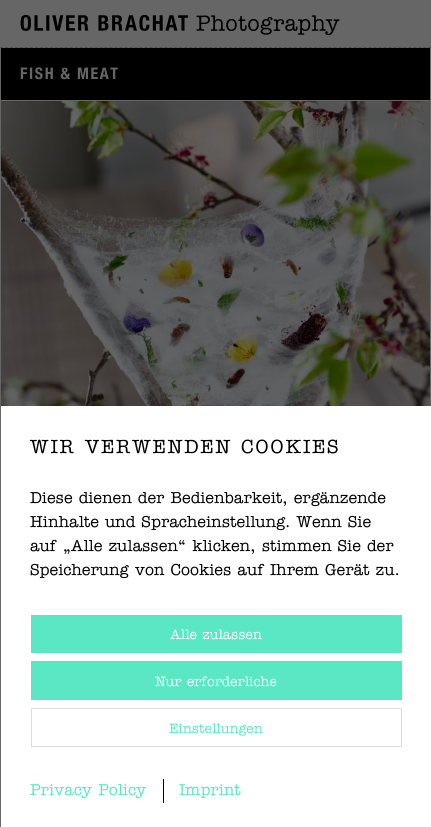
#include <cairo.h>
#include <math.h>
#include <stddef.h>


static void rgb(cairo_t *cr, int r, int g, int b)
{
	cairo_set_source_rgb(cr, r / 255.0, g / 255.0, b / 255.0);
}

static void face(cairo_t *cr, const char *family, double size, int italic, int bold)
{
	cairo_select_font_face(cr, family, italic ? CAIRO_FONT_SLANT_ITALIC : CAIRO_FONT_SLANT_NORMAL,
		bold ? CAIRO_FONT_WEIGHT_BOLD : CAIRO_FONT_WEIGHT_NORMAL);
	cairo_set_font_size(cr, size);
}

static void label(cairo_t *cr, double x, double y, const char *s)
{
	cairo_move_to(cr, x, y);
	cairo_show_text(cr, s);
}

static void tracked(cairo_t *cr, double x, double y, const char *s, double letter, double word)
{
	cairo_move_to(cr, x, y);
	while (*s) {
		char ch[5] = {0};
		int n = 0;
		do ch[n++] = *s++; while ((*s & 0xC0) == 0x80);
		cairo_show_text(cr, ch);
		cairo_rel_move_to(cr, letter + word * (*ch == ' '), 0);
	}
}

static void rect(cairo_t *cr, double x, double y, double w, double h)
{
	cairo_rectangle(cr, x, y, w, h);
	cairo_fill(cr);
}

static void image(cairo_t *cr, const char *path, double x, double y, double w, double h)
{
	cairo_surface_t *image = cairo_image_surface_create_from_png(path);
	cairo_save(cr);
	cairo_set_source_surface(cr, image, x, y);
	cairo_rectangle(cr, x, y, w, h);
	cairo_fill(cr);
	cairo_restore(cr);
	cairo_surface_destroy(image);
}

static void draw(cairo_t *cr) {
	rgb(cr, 102, 102, 102);
	cairo_paint(cr);
	cairo_new_path(cr);
	cairo_move_to(cr, 0, 47.5);
	cairo_line_to(cr, 431, 47.5);
	rgb(cr, 77, 77, 77);
	cairo_set_line_width(cr, 1);
	cairo_set_dash(cr, (double[]){3, 1.98}, 2, 0);
	cairo_stroke(cr);
	image(cr, "image0.png", 20, 15, 320, 21);
	rgb(cr, 0, 0, 0);
	rect(cr, 1, 48, 429, 52);
	face(cr, "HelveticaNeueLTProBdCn", 16, 0, 0);
	rgb(cr, 102, 102, 102);
	tracked(cr, 20, 79, "FISH & MEAT", 1.6, 0);
	image(cr, "image1.png", 1, 101, 429, 305);
	rgb(cr, 255, 255, 255);
	rect(cr, 1, 406, 430, 421);
	face(cr, "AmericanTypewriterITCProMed", 19.25, 0, 0);
	rgb(cr, 0, 0, 0);
	tracked(cr, 30, 453, "WIR VERWENDEN COOKIES", 1.9, 0);
	face(cr, "AmericanTypewriterITCProMed", 16, 0, 0);
	label(cr, 30, 503, "Diese dienen der Bedienbarkeit, ergänzende");
	label(cr, 30, 527, "Hinhalte und Spracheinstellung. Wenn Sie");
	label(cr, 30, 551, "auf „Alle zulassen“ klicken, stimmen Sie der");
	label(cr, 30, 575, "Speicherung von Cookies auf Ihrem Gerät zu.");
	rgb(cr, 90, 232, 196);
	rect(cr, 31, 615, 371, 38);
	face(cr, "AmericanTypewriterITCProMed", 13.75, 0, 0);
	rgb(cr, 255, 255, 255);
	label(cr, 170, 639, "Alle zulassen");
	rgb(cr, 90, 232, 196);
	rect(cr, 31, 661, 371, 39);
	rgb(cr, 255, 255, 255);
	label(cr, 155, 686, "Nur erforderliche");
	cairo_rectangle(cr, 31.5, 708.5, 370, 38);
	rgb(cr, 221, 221, 221);
	cairo_set_dash(cr, NULL, 0, 0);
	cairo_stroke(cr);
	rgb(cr, 90, 232, 196);
	label(cr, 169, 733, "Einstellungen");
	rgb(cr, 0, 0, 0);
	rect(cr, 163, 779, 1, 24);
	face(cr, "AmericanTypewriterITCProMed", 16, 0, 0);
	rgb(cr, 90, 232, 196);
	label(cr, 30, 795, "Privacy Policy");
	label(cr, 179, 795, "Imprint");
}

int main(void) {
	cairo_surface_t *surface = cairo_image_surface_create(CAIRO_FORMAT_RGB24, 431, 827);
	cairo_t *cr = cairo_create(surface);
	cairo_font_options_t *options = cairo_font_options_create();
	cairo_font_options_set_hint_metrics(options, CAIRO_HINT_METRICS_OFF);
	cairo_font_options_set_hint_style(options, CAIRO_HINT_STYLE_NONE);
	cairo_set_font_options(cr, options);
	cairo_set_miter_limit(cr, 4);
	draw(cr);
	cairo_surface_write_to_png(surface, "render.png");
	cairo_font_options_destroy(options);
	cairo_destroy(cr);
	cairo_surface_destroy(surface);
	return 0;
}
